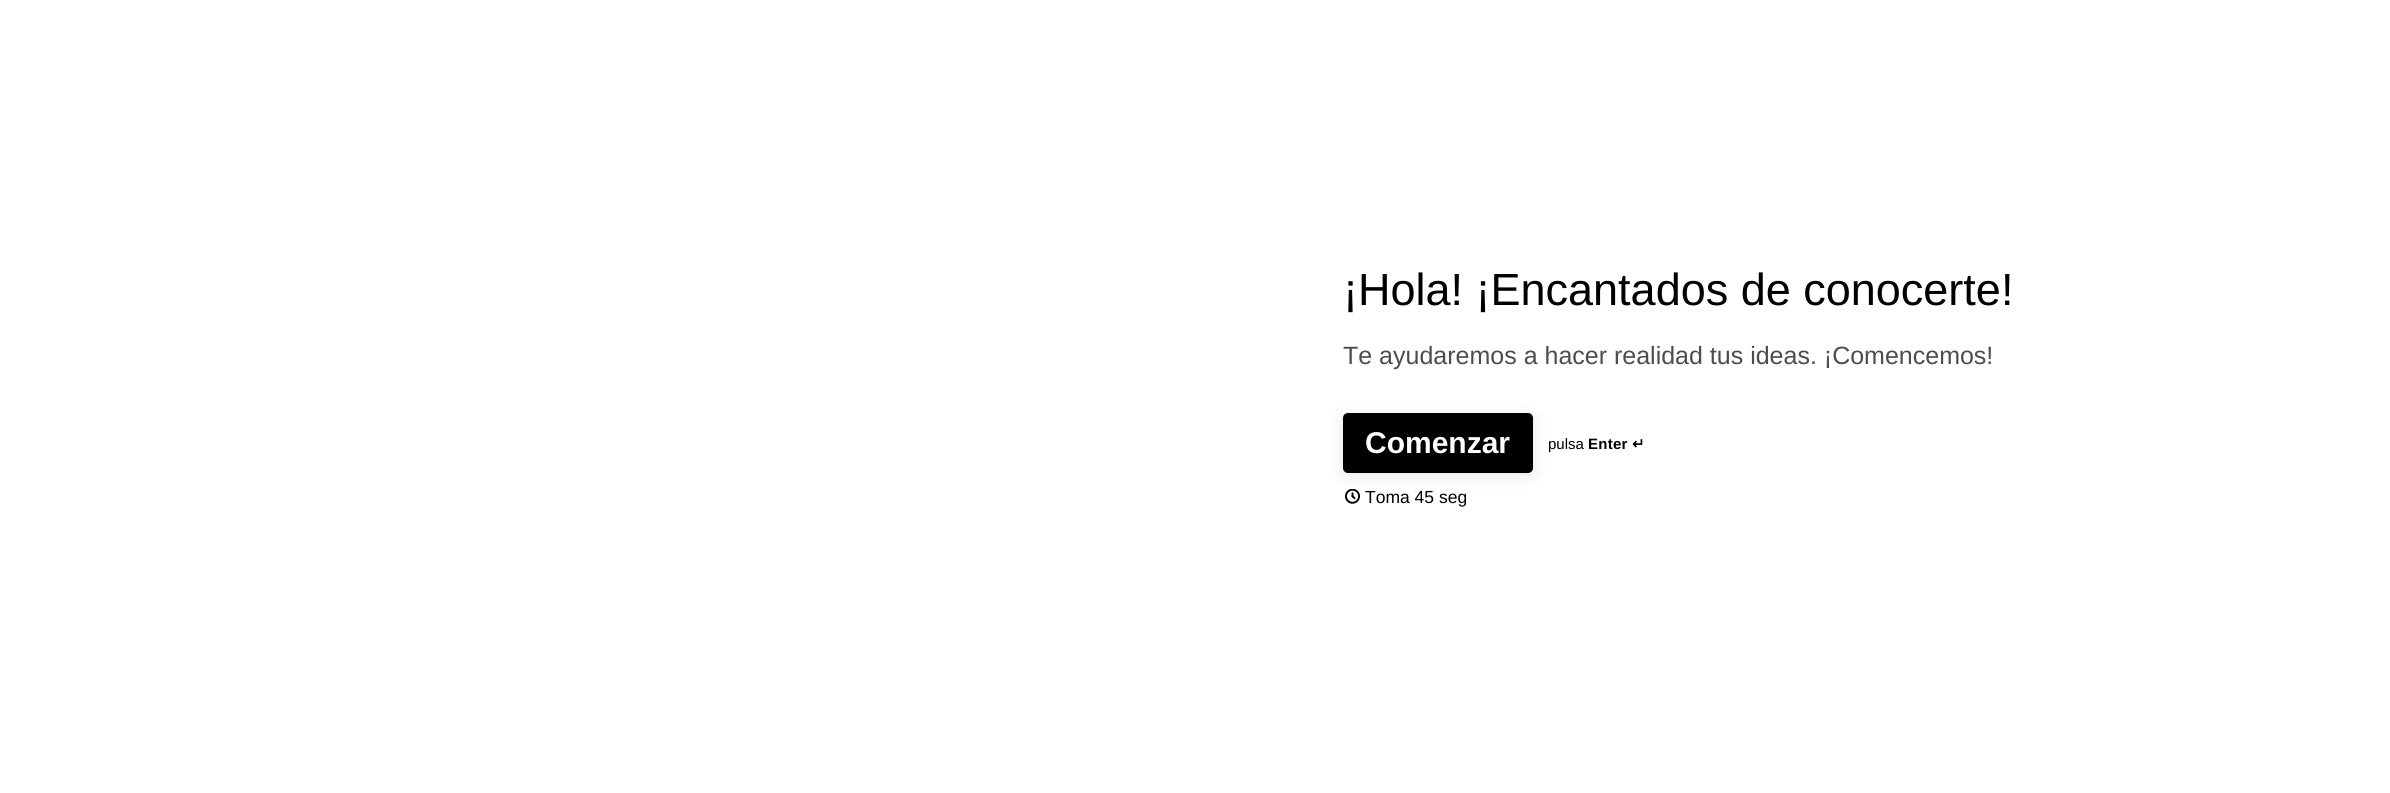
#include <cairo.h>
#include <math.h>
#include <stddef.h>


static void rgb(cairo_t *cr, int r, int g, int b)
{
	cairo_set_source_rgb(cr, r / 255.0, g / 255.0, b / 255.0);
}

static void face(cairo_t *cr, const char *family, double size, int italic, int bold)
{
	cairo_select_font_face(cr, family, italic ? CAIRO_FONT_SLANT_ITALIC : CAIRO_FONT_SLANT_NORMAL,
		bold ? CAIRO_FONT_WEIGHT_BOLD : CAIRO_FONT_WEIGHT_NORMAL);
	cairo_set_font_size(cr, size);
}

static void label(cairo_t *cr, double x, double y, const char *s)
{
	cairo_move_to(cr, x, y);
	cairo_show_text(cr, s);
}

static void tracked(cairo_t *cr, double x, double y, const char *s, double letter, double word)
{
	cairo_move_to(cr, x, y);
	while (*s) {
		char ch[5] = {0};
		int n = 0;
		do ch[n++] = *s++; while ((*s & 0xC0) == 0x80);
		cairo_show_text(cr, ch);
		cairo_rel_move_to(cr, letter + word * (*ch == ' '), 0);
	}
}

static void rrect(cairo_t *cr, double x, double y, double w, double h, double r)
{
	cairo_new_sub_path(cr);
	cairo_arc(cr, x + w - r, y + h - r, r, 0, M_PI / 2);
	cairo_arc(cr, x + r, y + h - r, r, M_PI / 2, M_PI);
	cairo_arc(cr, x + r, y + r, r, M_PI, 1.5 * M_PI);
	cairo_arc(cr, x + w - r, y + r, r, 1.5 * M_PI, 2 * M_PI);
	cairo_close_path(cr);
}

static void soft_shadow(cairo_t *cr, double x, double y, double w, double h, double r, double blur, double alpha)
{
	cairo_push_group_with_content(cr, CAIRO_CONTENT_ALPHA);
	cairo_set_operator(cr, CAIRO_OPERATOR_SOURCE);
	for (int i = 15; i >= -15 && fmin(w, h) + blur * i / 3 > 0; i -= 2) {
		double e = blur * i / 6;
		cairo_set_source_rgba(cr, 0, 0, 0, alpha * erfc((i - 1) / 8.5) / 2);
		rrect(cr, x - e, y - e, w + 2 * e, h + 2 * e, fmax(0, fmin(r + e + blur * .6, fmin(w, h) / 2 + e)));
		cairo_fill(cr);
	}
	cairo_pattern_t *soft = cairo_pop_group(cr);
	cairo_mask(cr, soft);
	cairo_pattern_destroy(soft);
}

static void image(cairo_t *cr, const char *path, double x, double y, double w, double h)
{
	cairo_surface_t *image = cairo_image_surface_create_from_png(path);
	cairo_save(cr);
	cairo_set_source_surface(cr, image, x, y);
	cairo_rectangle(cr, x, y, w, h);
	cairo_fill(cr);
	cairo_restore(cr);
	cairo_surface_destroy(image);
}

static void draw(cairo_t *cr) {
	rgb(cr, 255, 255, 255);
	cairo_paint(cr);
	face(cr, "Liberation Sans", 45, 0, 0);
	rgb(cr, 0, 0, 0);
	label(cr, 1343, 305, "¡Hola! ¡Encantados de conocerte!");
	face(cr, "Liberation Sans", 25, 0, 0);
	rgb(cr, 77, 77, 77);
	label(cr, 1343, 364, "Te ayudaremos a hacer realidad tus ideas. ¡Comencemos!");
	rgb(cr, 0, 0, 0);
	soft_shadow(cr, 1343, 416, 190, 60, 5, 7.5, 0.1);
	rgb(cr, 0, 0, 0);
	rrect(cr, 1343, 413, 190, 60, 5);
	cairo_fill(cr);
	face(cr, "Liberation Sans", 30, 0, 1);
	rgb(cr, 255, 255, 255);
	label(cr, 1365, 453, "Comenzar");
	face(cr, "Liberation Sans", 15, 0, 0);
	rgb(cr, 0, 0, 0);
	label(cr, 1548, 449, "pulsa");
	face(cr, "Liberation Sans", 15, 0, 1);
	tracked(cr, 1588, 449, "Enter", 0.25, 0);
	face(cr, "DejaVu Sans", 15, 0, 1);
	tracked(cr, 1632, 449, "↵", 0.25, 0);
	image(cr, "image0.png", 1345, 489, 15, 15);
	face(cr, "Liberation Sans", 17.5, 0, 0);
	label(cr, 1365, 503, "Toma 45 seg");
}

int main(void) {
	cairo_surface_t *surface = cairo_image_surface_create(CAIRO_FORMAT_RGB24, 2390, 793);
	cairo_t *cr = cairo_create(surface);
	cairo_font_options_t *options = cairo_font_options_create();
	cairo_font_options_set_hint_metrics(options, CAIRO_HINT_METRICS_OFF);
	cairo_font_options_set_hint_style(options, CAIRO_HINT_STYLE_NONE);
	cairo_set_font_options(cr, options);
	cairo_set_miter_limit(cr, 4);
	draw(cr);
	cairo_surface_write_to_png(surface, "render.png");
	cairo_font_options_destroy(options);
	cairo_destroy(cr);
	cairo_surface_destroy(surface);
	return 0;
}
